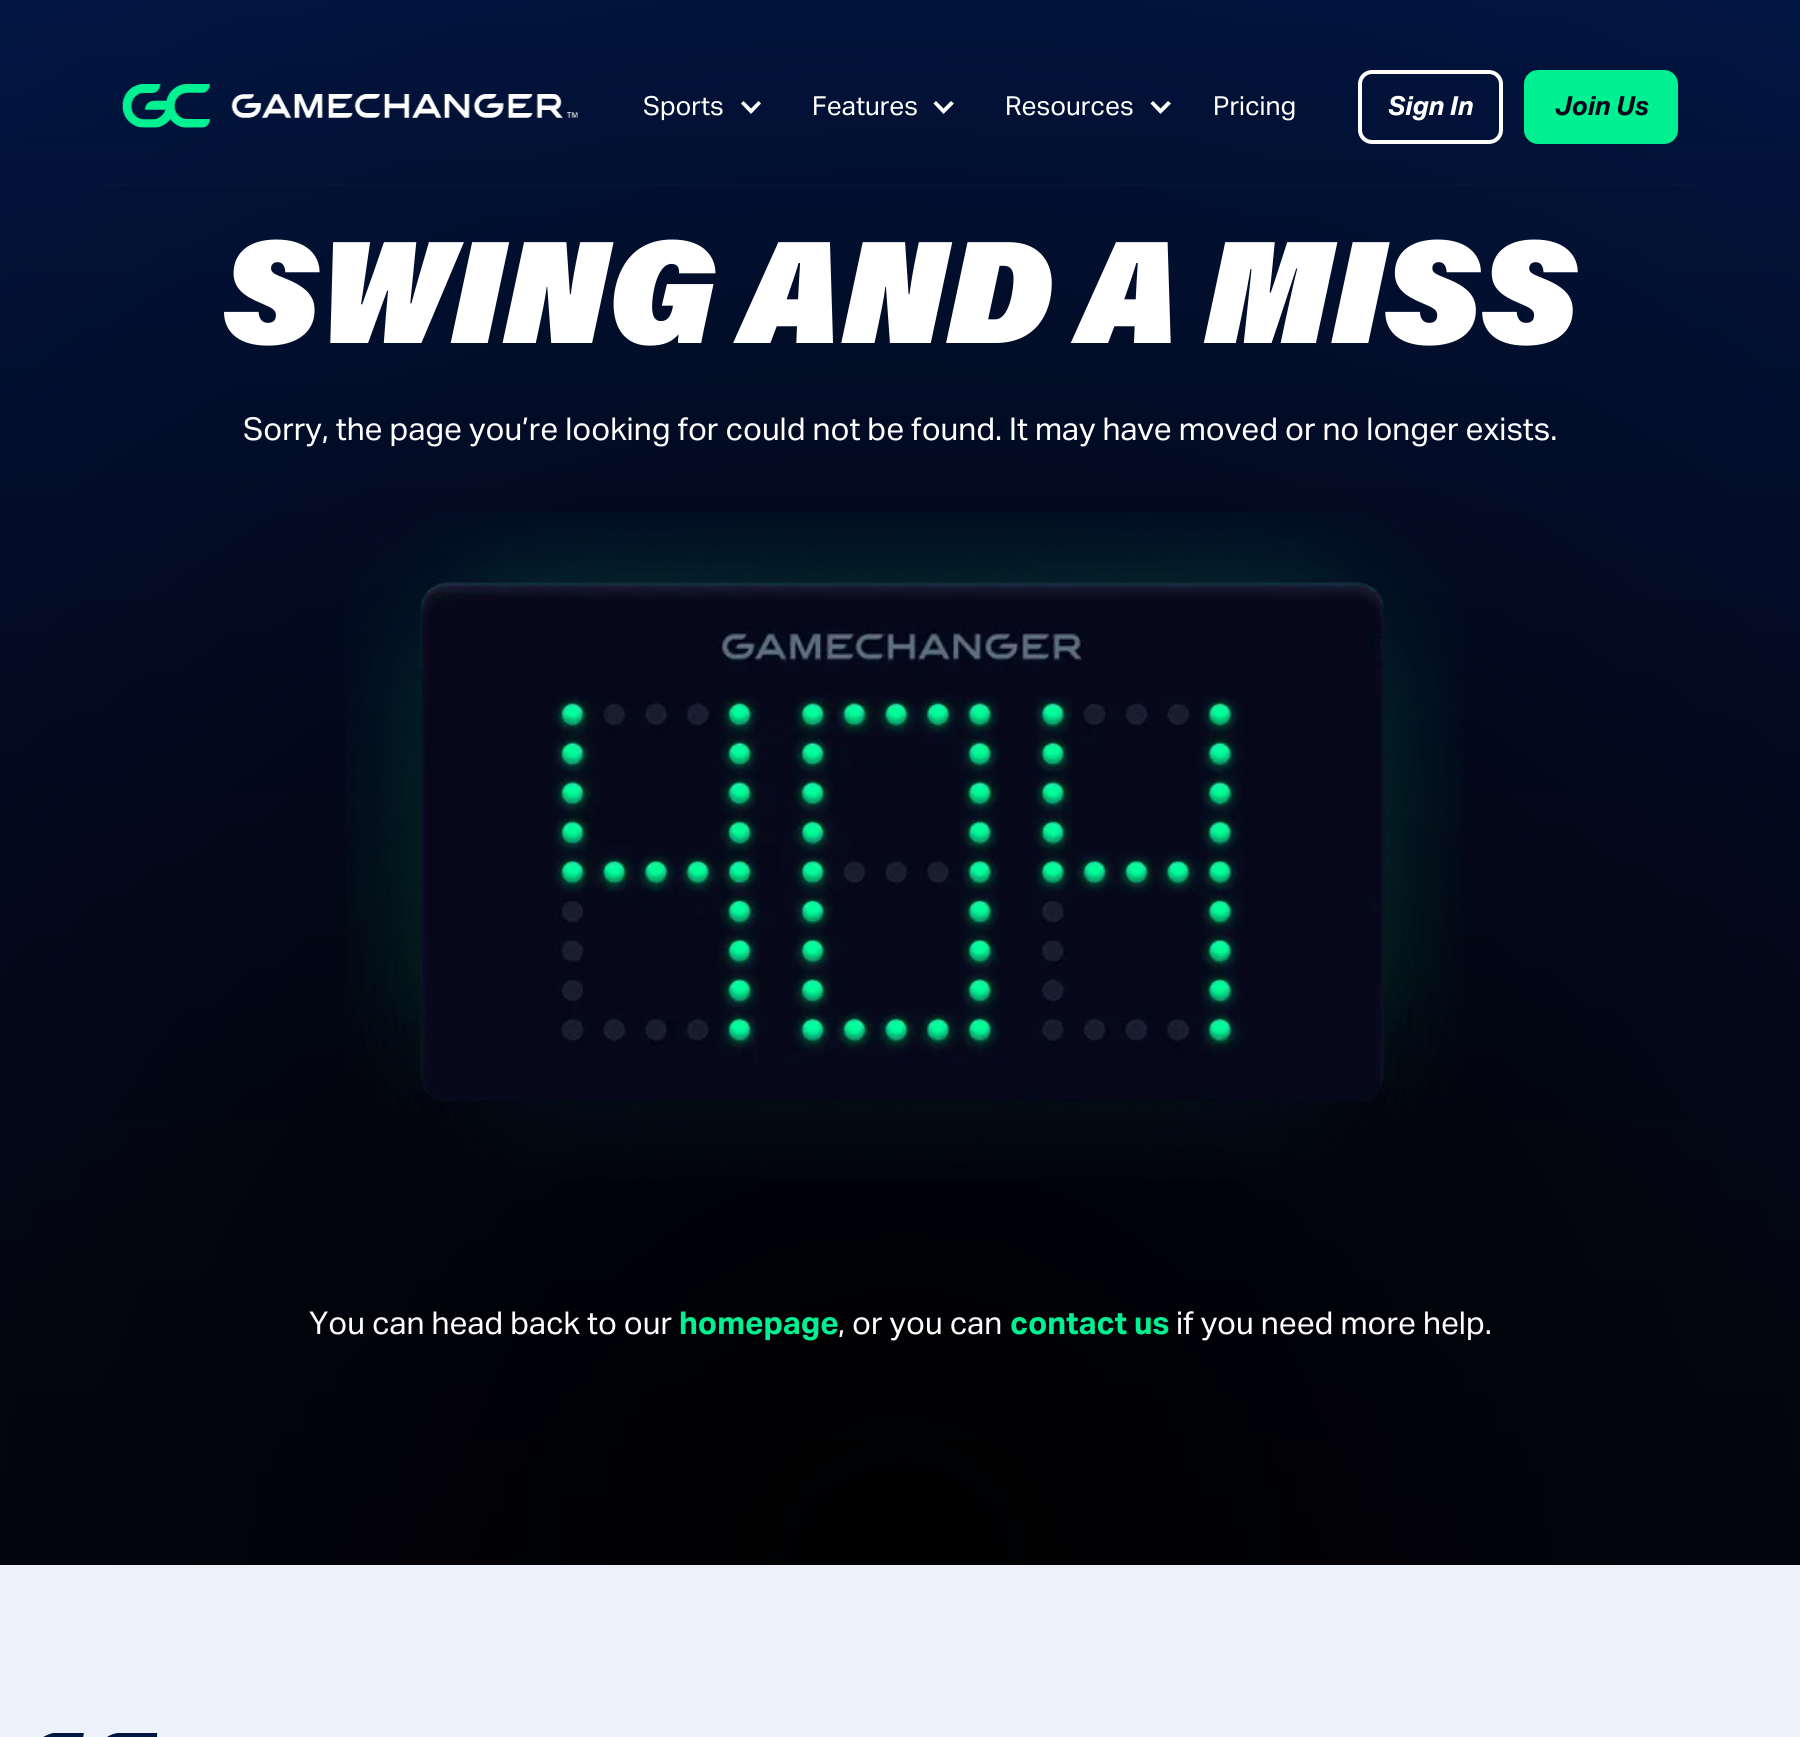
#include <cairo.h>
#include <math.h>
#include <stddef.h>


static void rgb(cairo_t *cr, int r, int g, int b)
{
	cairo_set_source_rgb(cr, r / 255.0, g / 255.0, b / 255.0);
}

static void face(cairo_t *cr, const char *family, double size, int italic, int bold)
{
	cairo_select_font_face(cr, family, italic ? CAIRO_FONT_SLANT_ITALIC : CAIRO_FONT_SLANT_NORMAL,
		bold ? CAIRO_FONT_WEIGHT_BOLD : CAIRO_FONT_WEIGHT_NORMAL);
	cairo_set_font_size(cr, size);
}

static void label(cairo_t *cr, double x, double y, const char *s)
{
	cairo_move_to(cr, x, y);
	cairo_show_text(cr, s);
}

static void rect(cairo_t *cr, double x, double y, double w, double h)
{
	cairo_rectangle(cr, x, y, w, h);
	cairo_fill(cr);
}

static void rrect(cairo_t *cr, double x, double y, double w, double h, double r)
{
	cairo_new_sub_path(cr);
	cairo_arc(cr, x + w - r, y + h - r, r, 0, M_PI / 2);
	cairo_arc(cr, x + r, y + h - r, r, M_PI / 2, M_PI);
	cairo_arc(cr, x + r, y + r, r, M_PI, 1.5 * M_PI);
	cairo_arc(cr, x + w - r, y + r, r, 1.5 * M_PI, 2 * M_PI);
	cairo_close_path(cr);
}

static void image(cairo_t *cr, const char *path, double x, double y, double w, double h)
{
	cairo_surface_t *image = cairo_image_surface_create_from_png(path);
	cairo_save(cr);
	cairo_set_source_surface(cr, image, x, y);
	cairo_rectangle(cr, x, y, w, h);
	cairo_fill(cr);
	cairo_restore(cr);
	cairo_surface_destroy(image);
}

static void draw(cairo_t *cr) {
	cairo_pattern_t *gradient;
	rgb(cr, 255, 255, 255);
	cairo_paint(cr);
	gradient = cairo_pattern_create_linear(900, 0, 900, 1565);
	cairo_pattern_add_color_stop_rgba(gradient, 0, 0.008, 0.086, 0.267, 1);
	cairo_pattern_add_color_stop_rgba(gradient, 1, 0.027, 0.031, 0.106, 1);
	cairo_set_source(cr, gradient);
	cairo_pattern_destroy(gradient);
	rect(cr, 0, 0, 1800, 1565);
	gradient = cairo_pattern_create_radial(900, 1565, 0, 900, 1565, 1805);
	cairo_pattern_add_color_stop_rgba(gradient, 0, 0, 0, 0, 1);
	cairo_pattern_add_color_stop_rgba(gradient, 1, 0, 0, 0, 0);
	cairo_set_source(cr, gradient);
	cairo_pattern_destroy(gradient);
	rect(cr, 0, 0, 1800, 1565);
	cairo_set_source_rgba(cr, 0.239, 0.259, 0.294, 0.07);
	rect(cr, 103, 184, 1595, 2);
	image(cr, "image0.png", 122, 84, 456, 44);
	face(cr, "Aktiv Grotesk", 26.25, 0, 0);
	rgb(cr, 255, 255, 255);
	label(cr, 643, 115, "Sports");
	cairo_new_path(cr);
	cairo_move_to(cr, 758.5, 101);
	cairo_line_to(cr, 751, 108.5);
	cairo_line_to(cr, 743.5, 101);
	cairo_line_to(cr, 741, 103.5);
	cairo_line_to(cr, 751, 114);
	cairo_line_to(cr, 761, 103.5);
	cairo_close_path(cr);
	cairo_fill(cr);
	label(cr, 812, 115, "Features");
	cairo_new_path(cr);
	cairo_move_to(cr, 951, 101);
	cairo_line_to(cr, 943.5, 108.5);
	cairo_line_to(cr, 936, 101);
	cairo_line_to(cr, 933.5, 103.5);
	cairo_line_to(cr, 943.5, 114);
	cairo_line_to(cr, 954, 103.5);
	cairo_close_path(cr);
	cairo_fill(cr);
	label(cr, 1005, 115, "Resources");
	cairo_new_path(cr);
	cairo_move_to(cr, 1168, 101);
	cairo_line_to(cr, 1160.5, 108.5);
	cairo_line_to(cr, 1153, 101);
	cairo_line_to(cr, 1150.5, 103.5);
	cairo_line_to(cr, 1160.5, 114);
	cairo_line_to(cr, 1171, 103.5);
	cairo_close_path(cr);
	cairo_fill(cr);
	label(cr, 1213, 115, "Pricing");
	rrect(cr, 1360, 72, 141, 70, 12);
	cairo_set_line_width(cr, 4);
	cairo_stroke(cr);
	face(cr, "Aktiv Grotesk", 26.25, 1, 1);
	label(cr, 1388, 115, "Sign In");
	rgb(cr, 0, 240, 146);
	rrect(cr, 1526, 72, 150, 70, 12);
	cairo_fill_preserve(cr);
	cairo_stroke(cr);
	rgb(cr, 7, 8, 27);
	label(cr, 1555, 115, "Join Us");
	image(cr, "image1.png", 224, 239, 1354, 107);
	face(cr, "Aktiv Grotesk", 31.5, 0, 0);
	rgb(cr, 255, 255, 255);
	label(cr, 243, 440, "Sorry, the page you’re looking for could not be found. It may have moved or no longer exists.");
	image(cr, "image2.png", 345, 512, 1118, 667);
	label(cr, 309, 1334, "You can head back to our");
	face(cr, "Aktiv Grotesk", 31.5, 0, 1);
	rgb(cr, 0, 240, 146);
	label(cr, 679, 1334, "homepage");
	face(cr, "Aktiv Grotesk", 31.5, 0, 0);
	rgb(cr, 255, 255, 255);
	label(cr, 838, 1334, ", or you can");
	face(cr, "Aktiv Grotesk", 31.5, 0, 1);
	rgb(cr, 0, 240, 146);
	label(cr, 1010, 1334, "contact us");
	face(cr, "Aktiv Grotesk", 31.5, 0, 0);
	rgb(cr, 255, 255, 255);
	label(cr, 1176, 1334, "if you need more help.");
	rgb(cr, 237, 242, 250);
	rect(cr, 0, 1565, 1800, 172);
	image(cr, "image3.png", 43, 1733, 115, 4);
}

int main(void) {
	cairo_surface_t *surface = cairo_image_surface_create(CAIRO_FORMAT_RGB24, 1800, 1737);
	cairo_t *cr = cairo_create(surface);
	cairo_font_options_t *options = cairo_font_options_create();
	cairo_font_options_set_hint_metrics(options, CAIRO_HINT_METRICS_OFF);
	cairo_font_options_set_hint_style(options, CAIRO_HINT_STYLE_NONE);
	cairo_set_font_options(cr, options);
	cairo_set_miter_limit(cr, 4);
	draw(cr);
	cairo_surface_write_to_png(surface, "render.png");
	cairo_font_options_destroy(options);
	cairo_destroy(cr);
	cairo_surface_destroy(surface);
	return 0;
}
